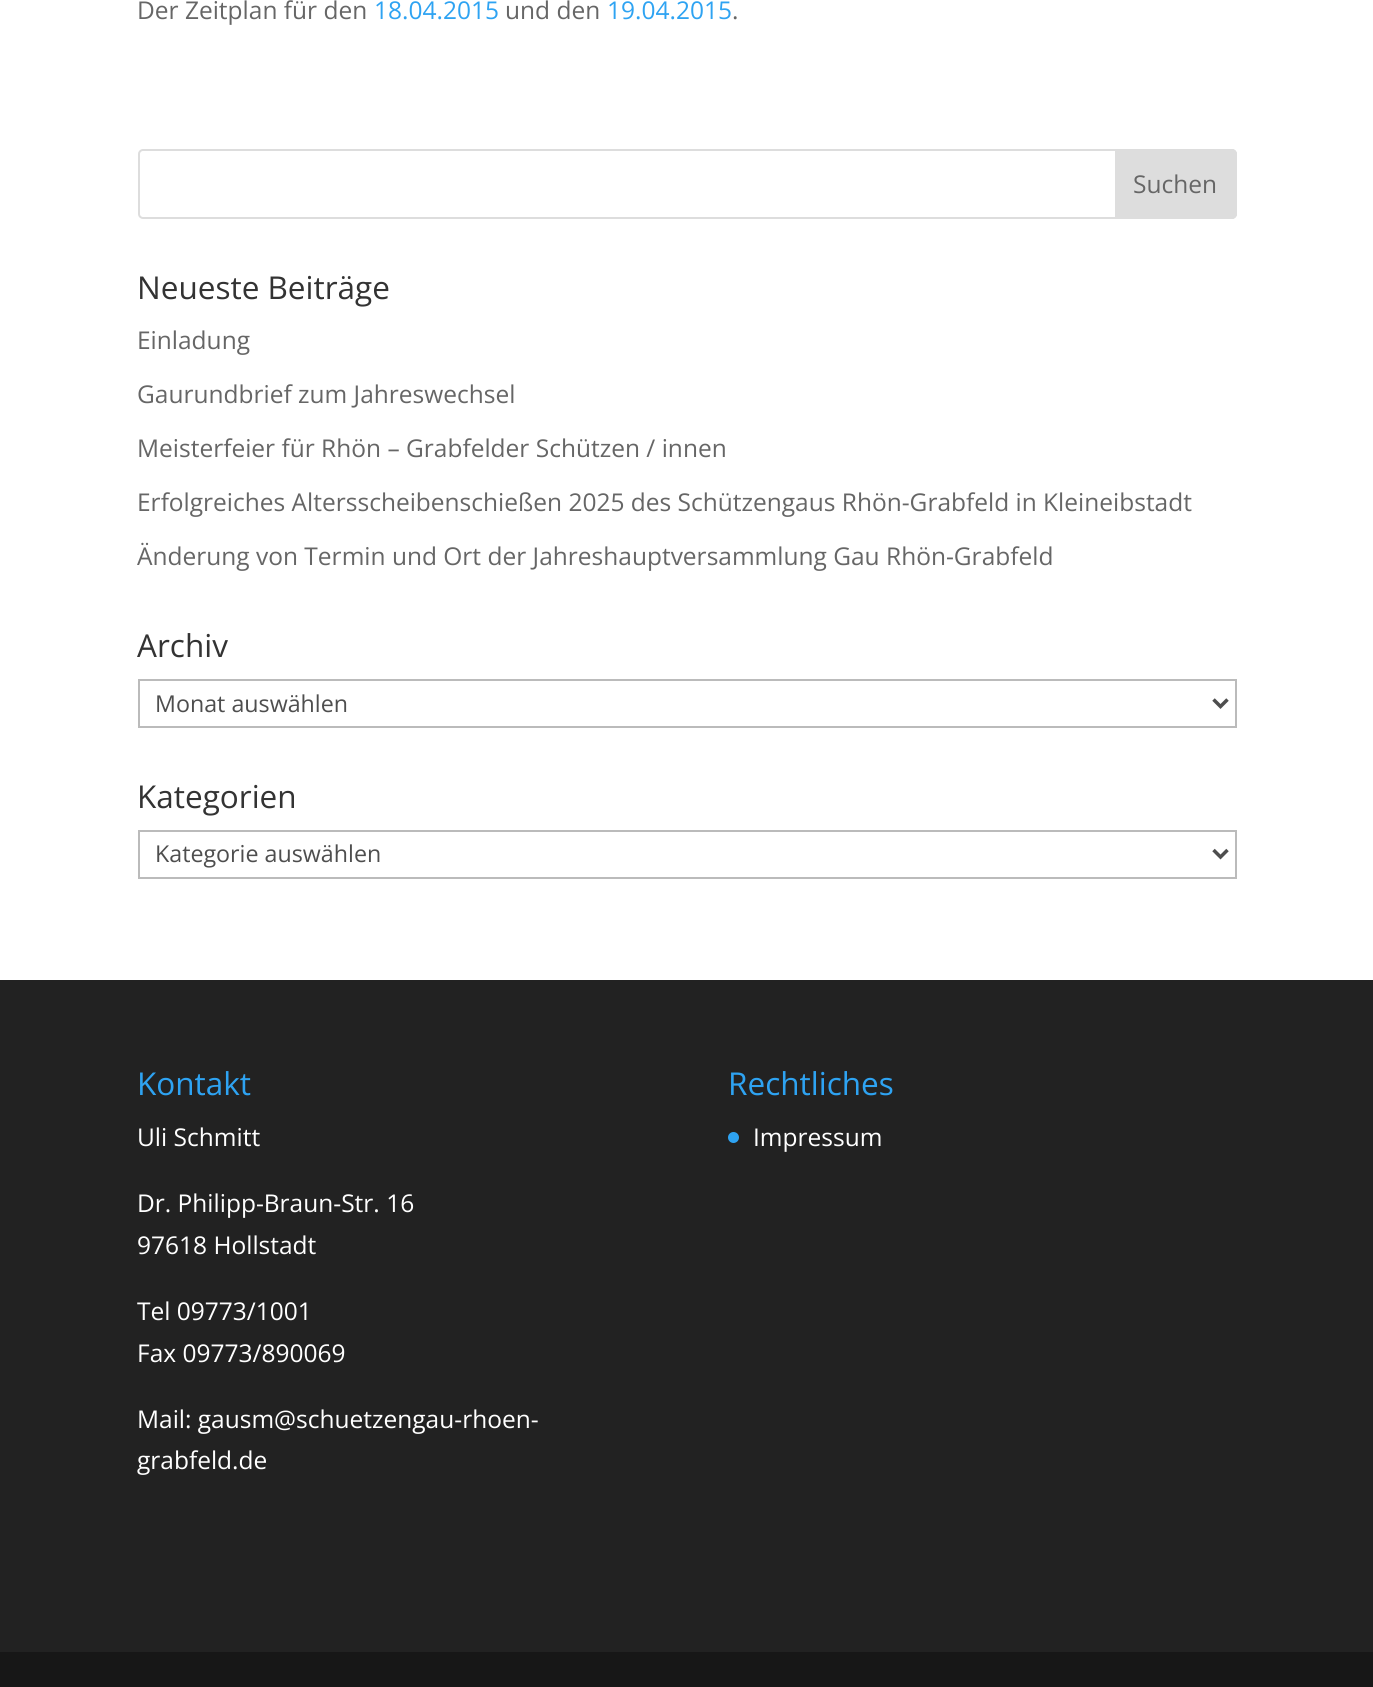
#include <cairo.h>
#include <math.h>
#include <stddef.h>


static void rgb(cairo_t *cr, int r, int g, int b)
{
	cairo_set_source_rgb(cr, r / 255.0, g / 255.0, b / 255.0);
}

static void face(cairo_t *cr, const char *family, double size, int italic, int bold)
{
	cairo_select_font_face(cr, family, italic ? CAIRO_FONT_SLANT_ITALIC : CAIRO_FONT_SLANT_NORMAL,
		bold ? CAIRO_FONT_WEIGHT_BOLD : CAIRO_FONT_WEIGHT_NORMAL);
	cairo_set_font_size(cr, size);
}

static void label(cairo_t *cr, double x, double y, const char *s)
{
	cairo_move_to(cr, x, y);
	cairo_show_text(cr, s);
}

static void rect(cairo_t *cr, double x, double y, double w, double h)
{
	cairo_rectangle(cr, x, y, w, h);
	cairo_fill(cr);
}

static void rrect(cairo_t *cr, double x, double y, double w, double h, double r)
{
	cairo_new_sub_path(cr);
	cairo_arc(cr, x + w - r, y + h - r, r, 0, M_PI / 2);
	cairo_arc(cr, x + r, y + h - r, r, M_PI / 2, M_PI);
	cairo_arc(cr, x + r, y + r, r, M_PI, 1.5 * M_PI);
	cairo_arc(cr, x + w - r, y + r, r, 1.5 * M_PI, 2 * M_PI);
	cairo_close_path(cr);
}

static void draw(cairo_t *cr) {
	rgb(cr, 255, 255, 255);
	cairo_paint(cr);
	face(cr, "Open Sans", 24.5, 0, 0);
	rgb(cr, 102, 102, 102);
	label(cr, 137, 19, "Der Zeitplan für den");
	rgb(cr, 46, 163, 242);
	label(cr, 374, 19, "18.04.2015");
	rgb(cr, 102, 102, 102);
	label(cr, 505, 19, "und den");
	rgb(cr, 46, 163, 242);
	label(cr, 607, 19, "19.04.2015");
	rgb(cr, 102, 102, 102);
	label(cr, 732, 19, ".");
	rrect(cr, 139, 150, 1097, 68, 4);
	rgb(cr, 221, 221, 221);
	cairo_stroke(cr);
	cairo_new_path(cr);
	cairo_move_to(cr, 1116, 150);
	cairo_line_to(cr, 1232, 150);
	cairo_curve_to(cr, 1234, 150, 1236, 152, 1236, 154);
	cairo_line_to(cr, 1236, 214);
	cairo_curve_to(cr, 1236, 216, 1234, 218, 1232, 218);
	cairo_line_to(cr, 1116, 218);
	cairo_close_path(cr);
	cairo_fill_preserve(cr);
	cairo_stroke(cr);
	rgb(cr, 102, 102, 102);
	label(cr, 1133, 193, "Suchen");
	face(cr, "Open Sans", 31.5, 0, 0);
	rgb(cr, 51, 51, 51);
	label(cr, 137, 299, "Neueste Beiträge");
	face(cr, "Open Sans", 24.5, 0, 0);
	rgb(cr, 102, 102, 102);
	label(cr, 137, 349, "Einladung");
	label(cr, 137, 403, "Gaurundbrief zum Jahreswechsel");
	label(cr, 137, 457, "Meisterfeier für Rhön – Grabfelder Schützen / innen");
	label(cr, 137, 511, "Erfolgreiches Altersscheibenschießen 2025 des Schützengaus Rhön-Grabfeld in Kleineibstadt");
	label(cr, 137, 565, "Änderung von Termin und Ort der Jahreshauptversammlung Gau Rhön-Grabfeld");
	face(cr, "Open Sans", 31.5, 0, 0);
	rgb(cr, 51, 51, 51);
	label(cr, 137, 657, "Archiv");
	cairo_rectangle(cr, 139, 680, 1097, 47);
	rgb(cr, 187, 187, 187);
	cairo_stroke(cr);
	cairo_new_path(cr);
	cairo_move_to(cr, 1213.5, 699.5);
	cairo_line_to(cr, 1220.5, 706.5);
	cairo_line_to(cr, 1227.5, 699.5);
	rgb(cr, 78, 78, 78);
	cairo_set_line_width(cr, 3.5);
	cairo_stroke(cr);
	face(cr, "Open Sans", 23.25, 0, 0);
	label(cr, 155, 712, "Monat auswählen");
	face(cr, "Open Sans", 31.5, 0, 0);
	rgb(cr, 51, 51, 51);
	label(cr, 137, 808, "Kategorien");
	cairo_rectangle(cr, 139, 831, 1097, 47);
	rgb(cr, 187, 187, 187);
	cairo_set_line_width(cr, 2);
	cairo_stroke(cr);
	cairo_new_path(cr);
	cairo_move_to(cr, 1213.5, 850);
	cairo_line_to(cr, 1220.5, 857);
	cairo_line_to(cr, 1227.5, 850);
	rgb(cr, 78, 78, 78);
	cairo_set_line_width(cr, 3.5);
	cairo_stroke(cr);
	face(cr, "Open Sans", 23.25, 0, 0);
	label(cr, 155, 862, "Kategorie auswählen");
	rgb(cr, 34, 34, 34);
	rect(cr, 0, 980, 1373, 672);
	face(cr, "Open Sans", 31.5, 0, 0);
	rgb(cr, 46, 163, 242);
	label(cr, 137, 1095, "Kontakt");
	face(cr, "Open Sans", 24.5, 0, 0);
	rgb(cr, 255, 255, 255);
	label(cr, 137, 1146, "Uli Schmitt");
	label(cr, 137, 1212, "Dr. Philipp-Braun-Str. 16");
	label(cr, 137, 1254, "97618 Hollstadt");
	label(cr, 137, 1320, "Tel 09773/1001");
	label(cr, 137, 1362, "Fax 09773/890069");
	label(cr, 137, 1428, "Mail: gausm@schuetzengau-rhoen-");
	label(cr, 137, 1469, "grabfeld.de");
	face(cr, "Open Sans", 31.5, 0, 0);
	rgb(cr, 46, 163, 242);
	label(cr, 728, 1095, "Rechtliches");
	cairo_new_path(cr);
	cairo_arc(cr, 733.5, 1137.5, 5.5, 0, 2 * M_PI);
	cairo_fill(cr);
	face(cr, "Open Sans", 24.5, 0, 0);
	rgb(cr, 255, 255, 255);
	label(cr, 753, 1146, "Impressum");
	rgb(cr, 23, 23, 23);
	rect(cr, 0, 1652, 1373, 35);
}

int main(void) {
	cairo_surface_t *surface = cairo_image_surface_create(CAIRO_FORMAT_RGB24, 1373, 1687);
	cairo_t *cr = cairo_create(surface);
	cairo_font_options_t *options = cairo_font_options_create();
	cairo_font_options_set_hint_metrics(options, CAIRO_HINT_METRICS_OFF);
	cairo_font_options_set_hint_style(options, CAIRO_HINT_STYLE_NONE);
	cairo_set_font_options(cr, options);
	cairo_set_miter_limit(cr, 4);
	draw(cr);
	cairo_surface_write_to_png(surface, "render.png");
	cairo_font_options_destroy(options);
	cairo_destroy(cr);
	cairo_surface_destroy(surface);
	return 0;
}
